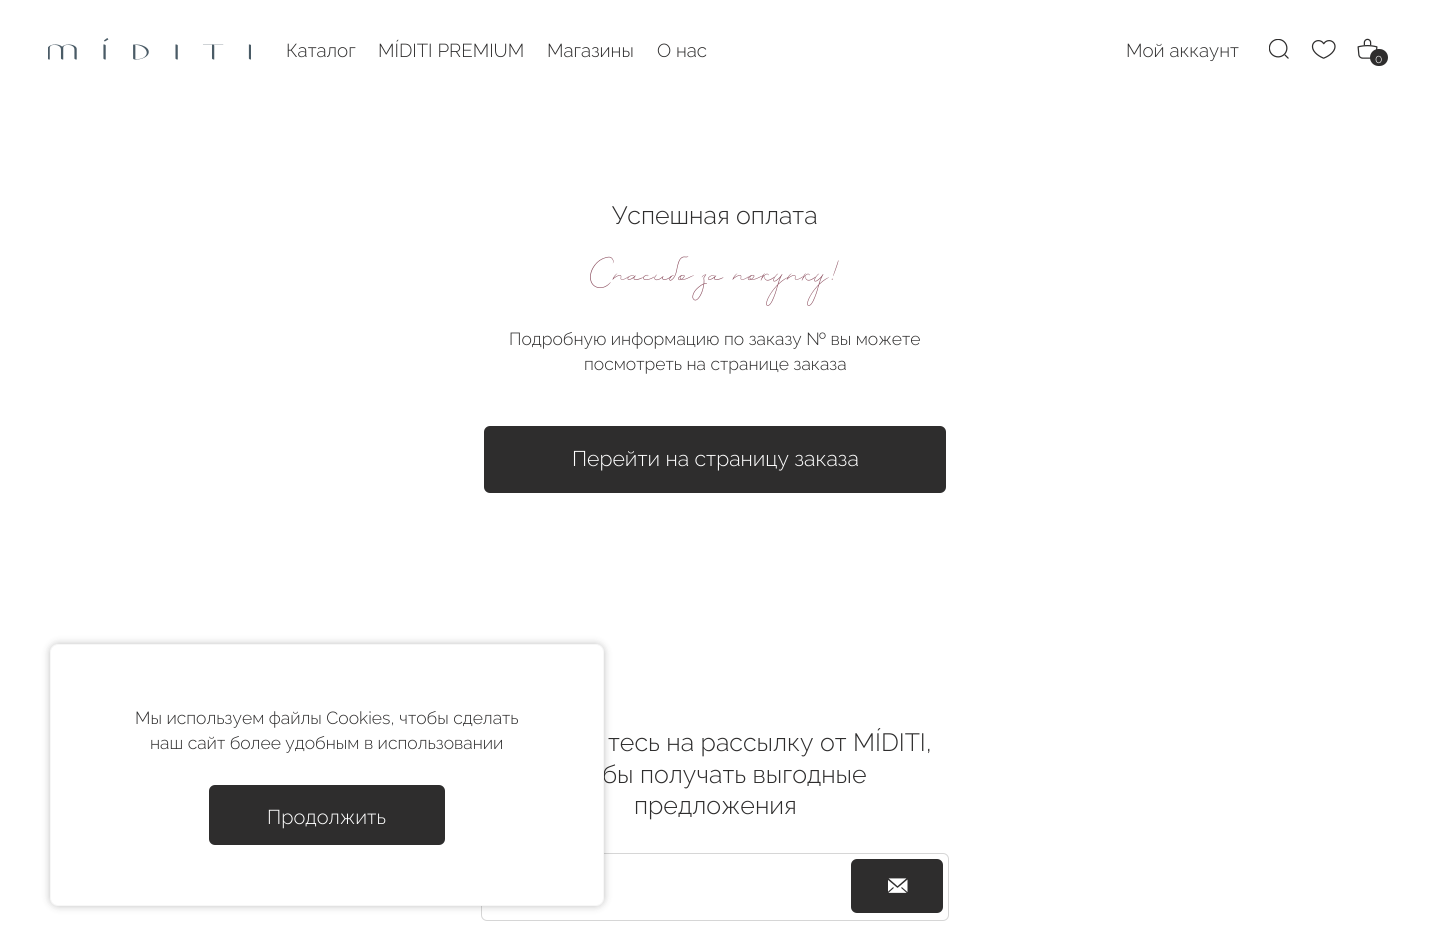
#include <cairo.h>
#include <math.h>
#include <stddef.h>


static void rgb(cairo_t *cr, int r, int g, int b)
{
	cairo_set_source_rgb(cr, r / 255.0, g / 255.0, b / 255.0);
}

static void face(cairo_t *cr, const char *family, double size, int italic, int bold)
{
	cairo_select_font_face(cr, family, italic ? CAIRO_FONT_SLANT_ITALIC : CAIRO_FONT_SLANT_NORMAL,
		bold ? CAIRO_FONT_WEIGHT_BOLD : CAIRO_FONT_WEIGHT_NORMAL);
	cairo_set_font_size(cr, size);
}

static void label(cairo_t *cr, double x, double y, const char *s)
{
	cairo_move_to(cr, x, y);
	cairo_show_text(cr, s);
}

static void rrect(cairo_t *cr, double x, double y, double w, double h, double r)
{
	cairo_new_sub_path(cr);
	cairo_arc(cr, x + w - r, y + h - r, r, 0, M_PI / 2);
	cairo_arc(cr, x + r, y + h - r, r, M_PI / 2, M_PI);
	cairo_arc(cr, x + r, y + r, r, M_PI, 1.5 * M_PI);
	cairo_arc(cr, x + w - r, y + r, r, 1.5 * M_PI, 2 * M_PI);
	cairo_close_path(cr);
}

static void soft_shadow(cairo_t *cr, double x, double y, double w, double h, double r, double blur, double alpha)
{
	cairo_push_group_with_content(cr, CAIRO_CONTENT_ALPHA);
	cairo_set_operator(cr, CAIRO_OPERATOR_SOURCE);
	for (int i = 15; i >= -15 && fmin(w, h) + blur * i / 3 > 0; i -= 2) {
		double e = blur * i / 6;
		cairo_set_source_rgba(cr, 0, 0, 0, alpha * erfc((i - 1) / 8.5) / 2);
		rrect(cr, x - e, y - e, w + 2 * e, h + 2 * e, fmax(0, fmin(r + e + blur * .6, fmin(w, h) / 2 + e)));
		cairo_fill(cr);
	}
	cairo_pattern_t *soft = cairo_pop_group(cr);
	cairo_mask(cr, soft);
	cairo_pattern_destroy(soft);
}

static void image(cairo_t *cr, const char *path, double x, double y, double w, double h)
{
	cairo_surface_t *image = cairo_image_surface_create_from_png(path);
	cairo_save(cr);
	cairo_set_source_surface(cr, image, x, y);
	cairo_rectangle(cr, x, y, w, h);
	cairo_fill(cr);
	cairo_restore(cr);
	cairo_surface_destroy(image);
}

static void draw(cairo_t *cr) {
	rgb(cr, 255, 255, 255);
	cairo_paint(cr);
	image(cr, "image0.png", 48, 38, 203, 22);
	face(cr, "Raleway Light", 18.75, 0, 0);
	rgb(cr, 46, 45, 45);
	label(cr, 286, 57, "Каталог");
	label(cr, 378, 57, "MÍDITI PREMIUM");
	label(cr, 547, 57, "Магазины");
	label(cr, 657, 57, "О нас");
	label(cr, 1126, 57, "Мой аккаунт");
	image(cr, "image1.png", 1269, 39, 20, 20);
	image(cr, "image2.png", 1311, 40, 25, 19);
	image(cr, "image3.png", 1357, 38, 21, 21);
	rrect(cr, 1370, 49, 18, 17, 8.5);
	cairo_fill(cr);
	face(cr, "Raleway Light", 12, 0, 0);
	rgb(cr, 255, 255, 255);
	label(cr, 1375, 63, "0");
	face(cr, "Raleway Light", 25, 0, 0);
	rgb(cr, 46, 45, 45);
	label(cr, 612, 224, "Успешная оплата");
	face(cr, "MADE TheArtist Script", 37.5, 0, 0);
	rgb(cr, 137, 74, 91);
	label(cr, 590, 284, "Спасибо за покупку!");
	face(cr, "Raleway Light", 17.5, 0, 0);
	rgb(cr, 46, 45, 45);
	label(cr, 509, 345, "Подробную информацию по заказу № вы можете");
	label(cr, 584, 370, "посмотреть на странице заказа");
	rrect(cr, 484, 426, 462, 67, 6);
	cairo_fill(cr);
	face(cr, "Raleway Light", 21.25, 0, 0);
	rgb(cr, 255, 255, 255);
	label(cr, 572, 466, "Перейти на страницу заказа");
	rrect(cr, 481.5, 853.5, 467, 67, 5.5);
	rgb(cr, 214, 214, 214);
	cairo_set_line_width(cr, 1);
	cairo_stroke(cr);
	rgb(cr, 0, 0, 0);
	soft_shadow(cr, 50, 644, 554, 262, 8, 4, 0.25);
	face(cr, "Raleway Light", 25, 0, 0);
	rgb(cr, 46, 45, 45);
	label(cr, 602, 783, "бы получать выгодные");
	rgb(cr, 255, 255, 255);
	rrect(cr, 50.5, 644.5, 553, 261, 7.5);
	cairo_fill_preserve(cr);
	rgb(cr, 247, 247, 247);
	cairo_stroke(cr);
	face(cr, "Raleway Light", 17.5, 0, 0);
	rgb(cr, 46, 45, 45);
	label(cr, 135, 724, "Мы используем файлы Cookies, чтобы сделать");
	label(cr, 150, 749, "наш сайт более удобным в использовании");
	rrect(cr, 209, 785, 236, 60, 6);
	cairo_fill(cr);
	face(cr, "Raleway Light", 20, 0, 0);
	rgb(cr, 255, 255, 255);
	label(cr, 267, 824, "Продолжить");
	face(cr, "Raleway Light", 25, 0, 0);
	rgb(cr, 46, 45, 45);
	label(cr, 608, 751, "тесь на рассылку от MÍDITI,");
	label(cr, 634, 814, "предложения");
	rrect(cr, 851, 859, 92, 54, 6);
	cairo_fill(cr);
	image(cr, "image4.png", 888, 878, 20, 15);
}

int main(void) {
	cairo_surface_t *surface = cairo_image_surface_create(CAIRO_FORMAT_RGB24, 1429, 943);
	cairo_t *cr = cairo_create(surface);
	cairo_font_options_t *options = cairo_font_options_create();
	cairo_font_options_set_hint_metrics(options, CAIRO_HINT_METRICS_OFF);
	cairo_font_options_set_hint_style(options, CAIRO_HINT_STYLE_NONE);
	cairo_set_font_options(cr, options);
	cairo_set_miter_limit(cr, 4);
	draw(cr);
	cairo_surface_write_to_png(surface, "render.png");
	cairo_font_options_destroy(options);
	cairo_destroy(cr);
	cairo_surface_destroy(surface);
	return 0;
}
